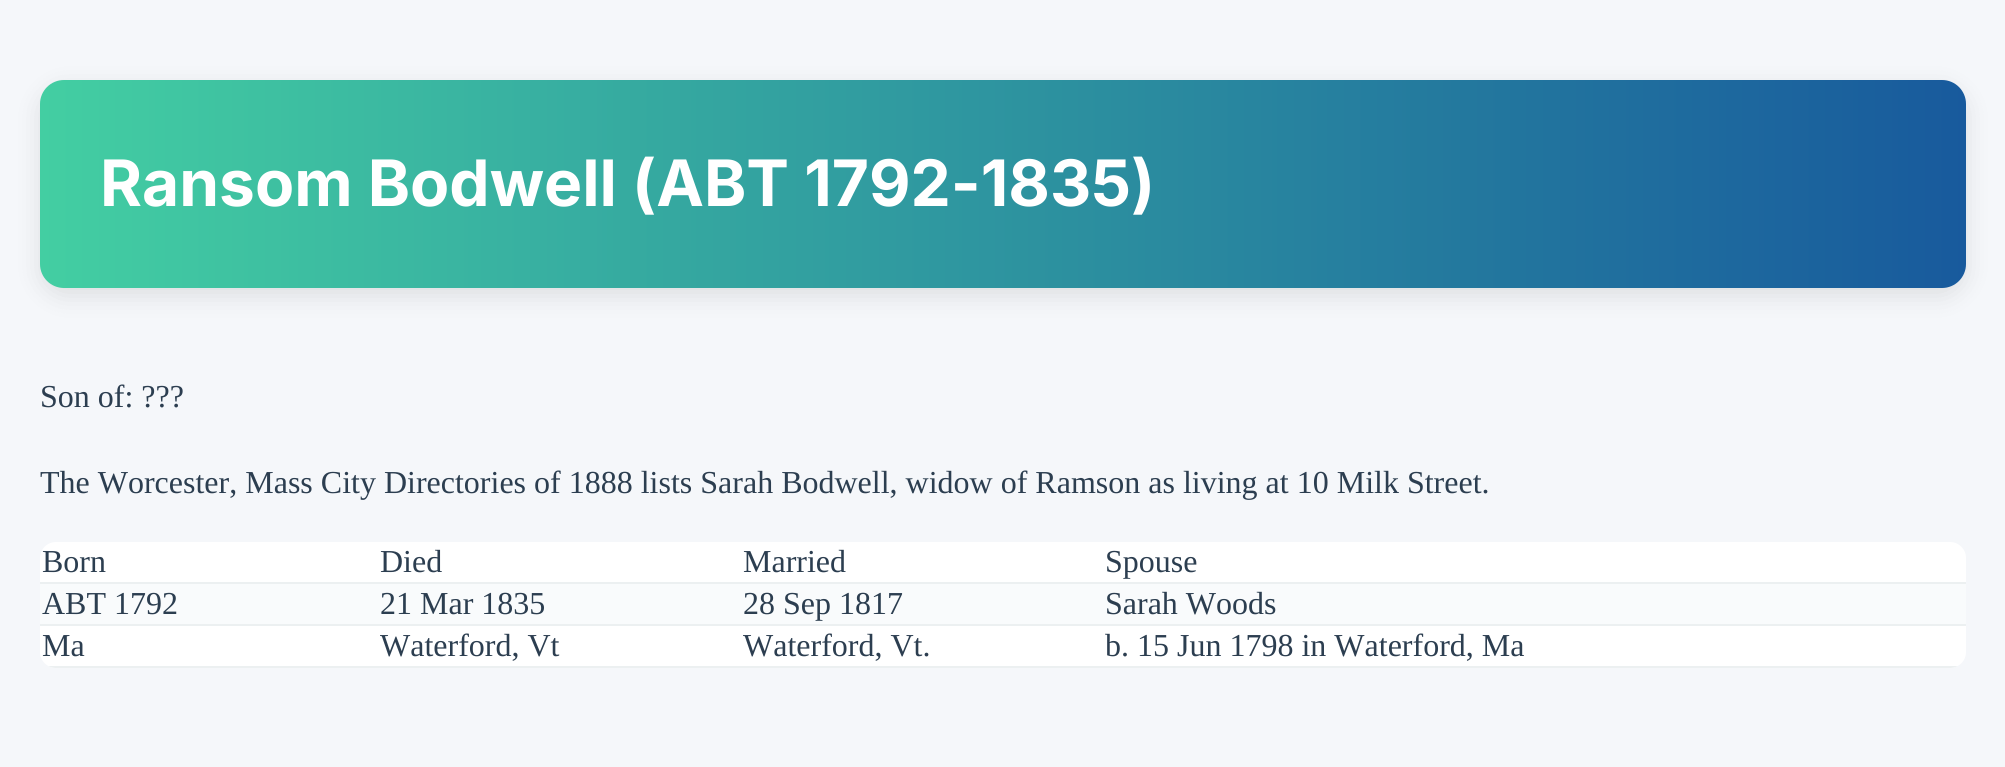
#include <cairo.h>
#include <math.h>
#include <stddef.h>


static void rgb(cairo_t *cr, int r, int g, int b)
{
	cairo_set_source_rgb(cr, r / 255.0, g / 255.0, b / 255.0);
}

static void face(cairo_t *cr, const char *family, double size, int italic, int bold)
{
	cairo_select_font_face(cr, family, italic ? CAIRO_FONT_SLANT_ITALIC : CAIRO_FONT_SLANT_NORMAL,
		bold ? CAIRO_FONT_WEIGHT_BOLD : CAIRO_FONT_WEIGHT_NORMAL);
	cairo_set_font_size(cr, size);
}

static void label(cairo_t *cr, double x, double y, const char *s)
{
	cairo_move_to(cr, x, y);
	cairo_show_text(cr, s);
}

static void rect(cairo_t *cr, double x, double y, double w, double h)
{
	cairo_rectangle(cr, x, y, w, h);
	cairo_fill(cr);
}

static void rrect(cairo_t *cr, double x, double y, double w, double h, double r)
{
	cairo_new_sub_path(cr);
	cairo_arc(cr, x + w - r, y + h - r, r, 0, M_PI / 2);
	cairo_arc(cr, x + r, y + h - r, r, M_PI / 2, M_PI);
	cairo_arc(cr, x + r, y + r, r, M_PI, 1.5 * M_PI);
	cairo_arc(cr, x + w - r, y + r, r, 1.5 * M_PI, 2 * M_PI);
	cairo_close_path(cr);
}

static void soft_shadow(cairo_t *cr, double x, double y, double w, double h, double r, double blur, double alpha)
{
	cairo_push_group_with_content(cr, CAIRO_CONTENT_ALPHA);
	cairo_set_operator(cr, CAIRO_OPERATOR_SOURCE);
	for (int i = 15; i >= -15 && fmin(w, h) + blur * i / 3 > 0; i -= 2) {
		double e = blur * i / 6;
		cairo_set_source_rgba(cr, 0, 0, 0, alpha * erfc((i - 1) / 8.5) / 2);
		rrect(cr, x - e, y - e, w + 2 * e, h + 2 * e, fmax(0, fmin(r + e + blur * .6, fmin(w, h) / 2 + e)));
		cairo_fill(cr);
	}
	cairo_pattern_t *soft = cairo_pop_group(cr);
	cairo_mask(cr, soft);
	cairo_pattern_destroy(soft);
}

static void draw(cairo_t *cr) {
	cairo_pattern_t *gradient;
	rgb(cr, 245, 247, 250);
	cairo_paint(cr);
	rgb(cr, 0, 0, 0);
	soft_shadow(cr, 40, 88, 1926, 208, 24, 12, 0.1);
	gradient = cairo_pattern_create_linear(40, 184, 1966, 184);
	cairo_pattern_add_color_stop_rgba(gradient, 0, 0.263, 0.808, 0.635, 1);
	cairo_pattern_add_color_stop_rgba(gradient, 1, 0.094, 0.353, 0.616, 1);
	cairo_set_source(cr, gradient);
	cairo_pattern_destroy(gradient);
	rrect(cr, 40, 80, 1926, 208, 24);
	cairo_fill(cr);
	face(cr, "Inter", 64, 0, 1);
	rgb(cr, 255, 255, 255);
	label(cr, 100, 206, "Ransom Bodwell (ABT 1792-1835)");
	face(cr, "Liberation Serif", 32, 0, 0);
	rgb(cr, 44, 62, 80);
	label(cr, 40, 407, "Son of: ?\077?");
	label(cr, 40, 493, "The Worcester, Mass City Directories of 1888 lists Sarah Bodwell, widow of Ramson as living at 10 Milk Street.");
	rgb(cr, 255, 255, 255);
	rrect(cr, 40, 542, 1926, 126, 16);
	cairo_fill(cr);
	rgb(cr, 44, 62, 80);
	label(cr, 42, 572, "Born");
	label(cr, 380, 572, "Died");
	label(cr, 743, 572, "Married");
	rgb(cr, 236, 240, 241);
	rect(cr, 40, 582, 1926, 2);
	rgb(cr, 44, 62, 80);
	label(cr, 1105, 572, "Spouse");
	rgb(cr, 249, 251, 252);
	rect(cr, 40, 584, 1926, 40);
	rgb(cr, 44, 62, 80);
	label(cr, 42, 614, "ABT 1792");
	label(cr, 380, 614, "21 Mar 1835");
	label(cr, 743, 614, "28 Sep 1817");
	rgb(cr, 236, 240, 241);
	rect(cr, 40, 624, 1926, 2);
	rgb(cr, 44, 62, 80);
	label(cr, 1105, 614, "Sarah Woods");
	cairo_save(cr);
	rrect(cr, 40, 542, 1926, 126, 16);
	cairo_clip(cr);
	rgb(cr, 236, 240, 241);
	rect(cr, 1102, 666, 864, 2);
	cairo_restore(cr);
	rgb(cr, 236, 240, 241);
	rect(cr, 376, 666, 728, 2);
	cairo_save(cr);
	rrect(cr, 40, 542, 1926, 126, 16);
	cairo_clip(cr);
	rect(cr, 40, 666, 338, 2);
	cairo_restore(cr);
	rgb(cr, 44, 62, 80);
	label(cr, 42, 656, "Ma");
	label(cr, 380, 656, "Waterford, Vt");
	label(cr, 743, 656, "Waterford, Vt.");
	label(cr, 1105, 656, "b. 15 Jun 1798 in Waterford, Ma");
}

int main(void) {
	cairo_surface_t *surface = cairo_image_surface_create(CAIRO_FORMAT_RGB24, 2005, 767);
	cairo_t *cr = cairo_create(surface);
	cairo_font_options_t *options = cairo_font_options_create();
	cairo_font_options_set_hint_metrics(options, CAIRO_HINT_METRICS_OFF);
	cairo_font_options_set_hint_style(options, CAIRO_HINT_STYLE_NONE);
	cairo_set_font_options(cr, options);
	cairo_set_miter_limit(cr, 4);
	draw(cr);
	cairo_surface_write_to_png(surface, "render.png");
	cairo_font_options_destroy(options);
	cairo_destroy(cr);
	cairo_surface_destroy(surface);
	return 0;
}
